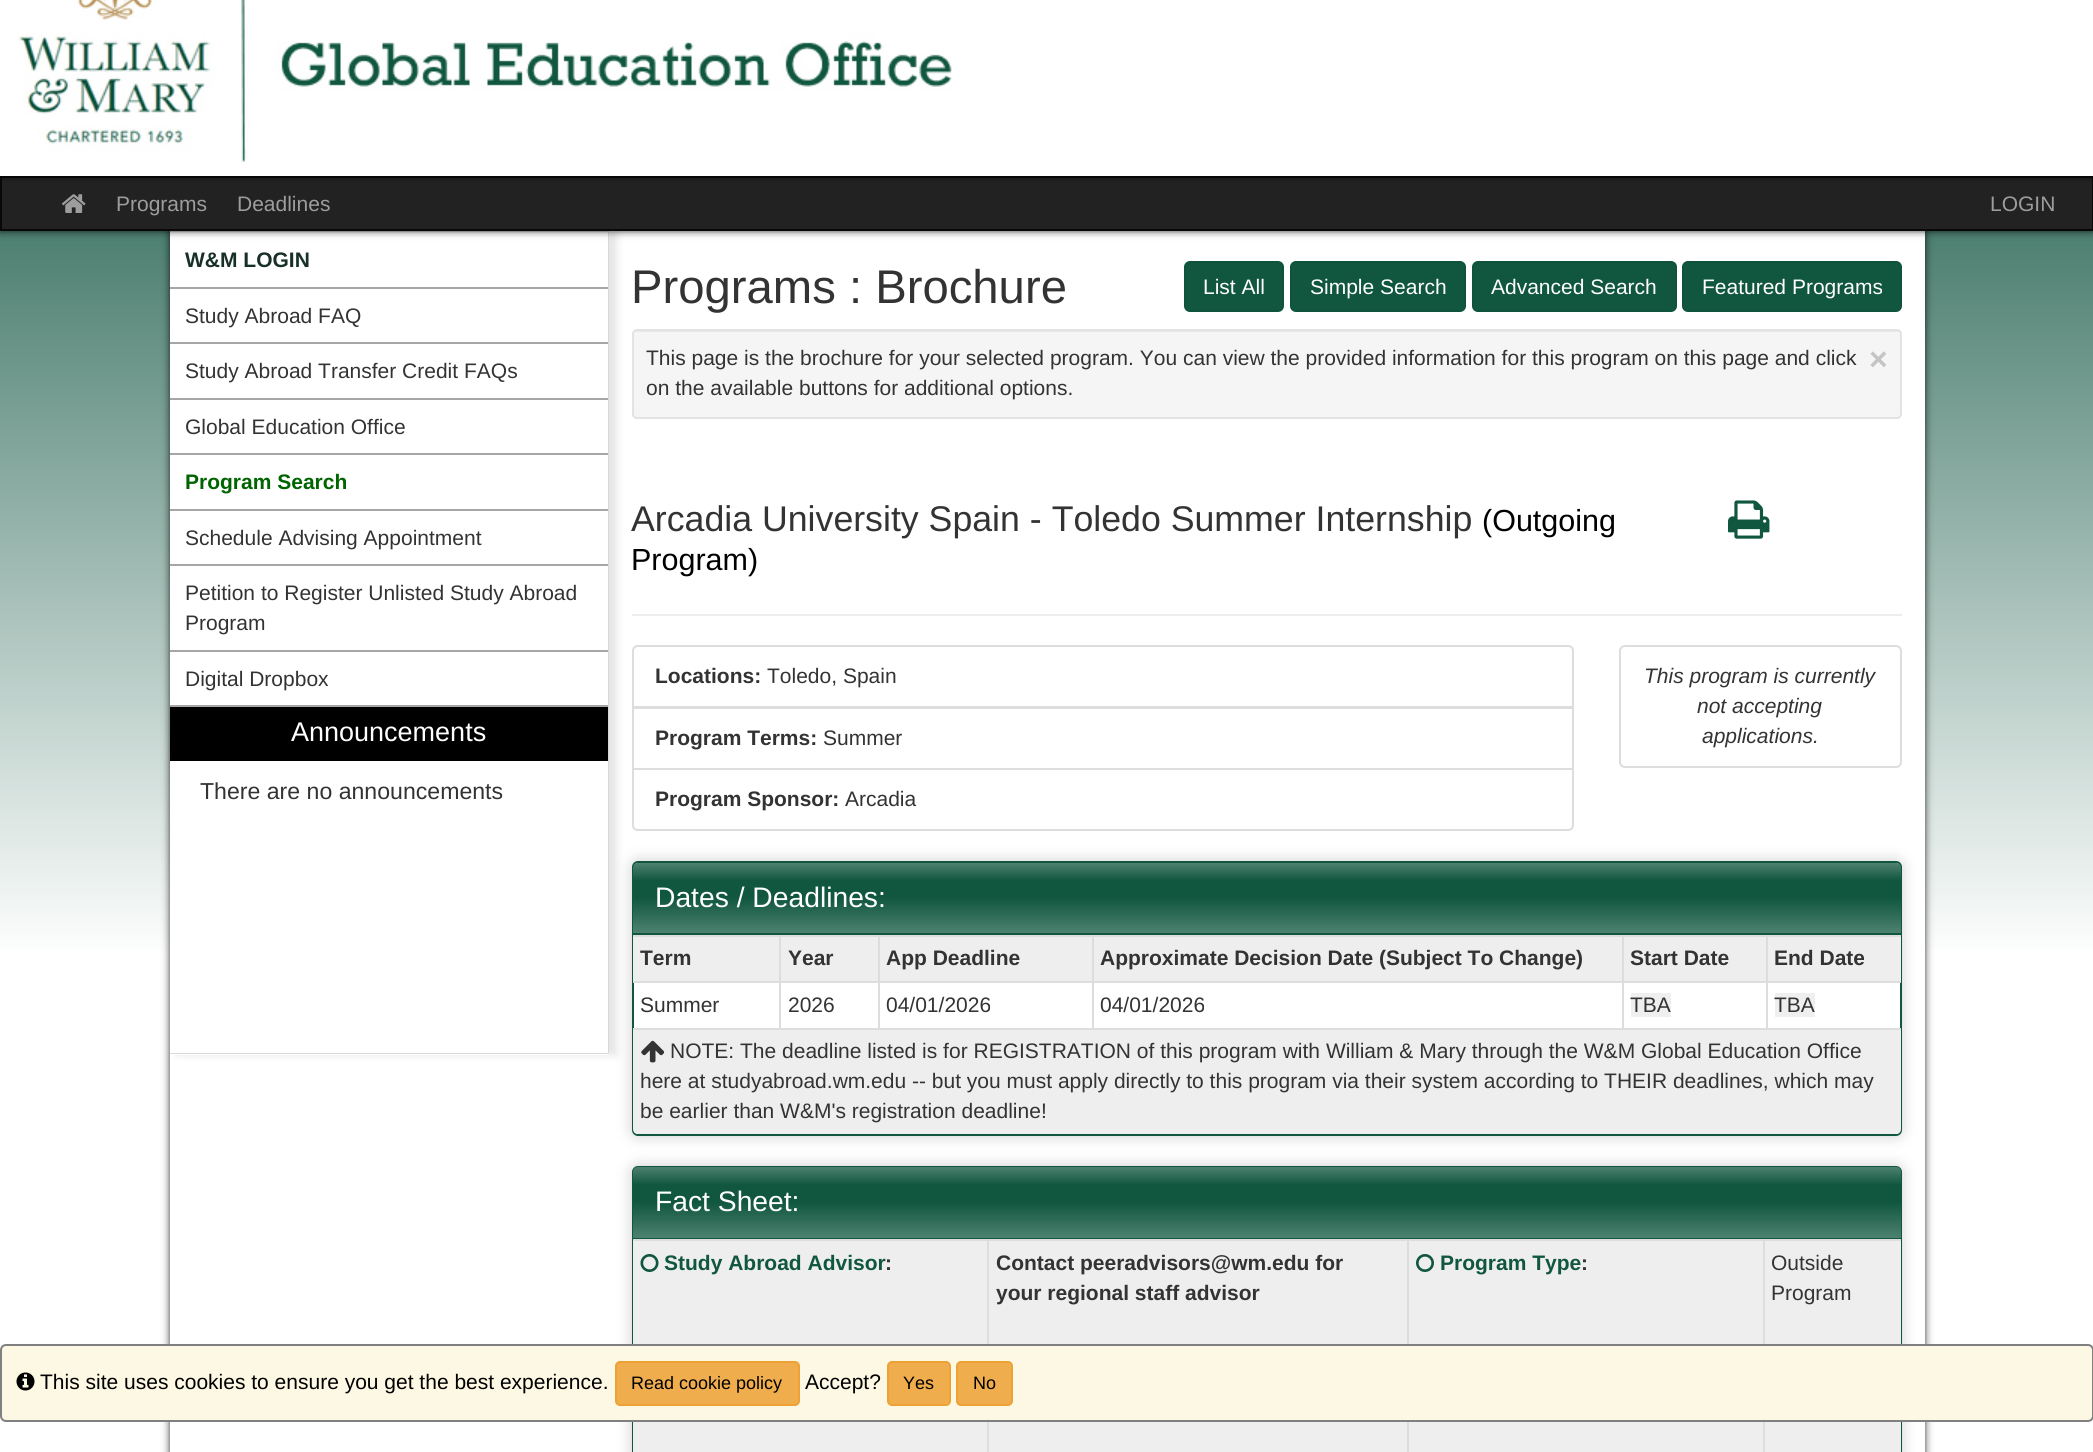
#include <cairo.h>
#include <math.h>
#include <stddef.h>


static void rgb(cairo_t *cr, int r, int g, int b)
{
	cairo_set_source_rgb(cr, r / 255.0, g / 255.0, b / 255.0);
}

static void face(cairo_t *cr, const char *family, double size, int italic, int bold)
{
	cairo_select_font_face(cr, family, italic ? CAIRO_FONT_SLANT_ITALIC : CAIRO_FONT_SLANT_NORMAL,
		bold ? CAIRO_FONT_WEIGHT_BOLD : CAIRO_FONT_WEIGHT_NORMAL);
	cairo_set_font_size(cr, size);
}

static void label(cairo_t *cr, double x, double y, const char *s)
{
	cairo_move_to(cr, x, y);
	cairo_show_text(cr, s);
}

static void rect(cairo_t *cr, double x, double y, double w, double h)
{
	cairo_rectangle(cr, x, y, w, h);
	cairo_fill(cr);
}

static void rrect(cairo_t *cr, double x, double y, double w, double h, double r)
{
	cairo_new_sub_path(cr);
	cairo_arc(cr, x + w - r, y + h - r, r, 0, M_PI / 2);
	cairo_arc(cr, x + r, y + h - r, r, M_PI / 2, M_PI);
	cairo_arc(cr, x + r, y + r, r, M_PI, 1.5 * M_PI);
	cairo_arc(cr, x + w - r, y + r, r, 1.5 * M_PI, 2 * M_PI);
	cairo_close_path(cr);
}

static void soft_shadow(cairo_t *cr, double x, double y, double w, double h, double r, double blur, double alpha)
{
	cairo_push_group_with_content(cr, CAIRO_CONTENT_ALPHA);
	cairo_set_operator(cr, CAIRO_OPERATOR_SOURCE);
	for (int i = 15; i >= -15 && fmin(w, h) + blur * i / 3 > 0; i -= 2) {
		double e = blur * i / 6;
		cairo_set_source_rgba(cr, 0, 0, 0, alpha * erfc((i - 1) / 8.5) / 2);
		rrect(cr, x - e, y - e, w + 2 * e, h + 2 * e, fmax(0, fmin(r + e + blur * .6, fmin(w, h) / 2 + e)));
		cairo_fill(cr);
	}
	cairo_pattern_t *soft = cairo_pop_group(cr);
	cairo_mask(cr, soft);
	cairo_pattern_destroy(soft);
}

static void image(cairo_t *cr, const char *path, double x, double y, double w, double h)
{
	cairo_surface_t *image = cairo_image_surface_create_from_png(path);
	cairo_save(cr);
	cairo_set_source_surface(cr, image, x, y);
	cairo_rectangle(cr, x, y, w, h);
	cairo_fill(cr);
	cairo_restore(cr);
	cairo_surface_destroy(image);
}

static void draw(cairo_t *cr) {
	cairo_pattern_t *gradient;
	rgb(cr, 255, 255, 255);
	cairo_paint(cr);
	gradient = cairo_pattern_create_linear(1047, -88, 1047, 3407);
	cairo_pattern_add_color_stop_rgba(gradient, 0.02, 0.063, 0.329, 0.251, 1);
	cairo_pattern_add_color_stop_rgba(gradient, 0.3, 1, 1, 1, 1);
	cairo_set_source(cr, gradient);
	cairo_pattern_destroy(gradient);
	rect(cr, 0, 231, 2093, 719);
	rgb(cr, 0, 0, 0);
	soft_shadow(cr, 170, 231, 1755, 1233, 0, 4, 0.8);
	rgb(cr, 255, 255, 255);
	rect(cr, 170, 231, 1755, 1221);
	cairo_save(cr);
	cairo_set_fill_rule(cr, CAIRO_FILL_RULE_EVEN_ODD);
	cairo_new_path(cr);
	cairo_move_to(cr, 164, 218);
	cairo_line_to(cr, 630, 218);
	cairo_line_to(cr, 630, 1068);
	cairo_line_to(cr, 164, 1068);
	cairo_close_path(cr);
	cairo_move_to(cr, 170, 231);
	cairo_line_to(cr, 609, 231);
	cairo_line_to(cr, 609, 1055);
	cairo_line_to(cr, 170, 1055);
	cairo_close_path(cr);
	cairo_clip(cr);
	rgb(cr, 0, 0, 0);
	soft_shadow(cr, 177, 231, 440, 824, 0, 4, 0.1);
	cairo_restore(cr);
	rgb(cr, 217, 217, 217);
	cairo_new_path(cr);
	cairo_move_to(cr, 170, 231);
	cairo_line_to(cr, 609, 231);
	cairo_line_to(cr, 608, 232);
	cairo_line_to(cr, 170, 232);
	cairo_close_path(cr);
	cairo_fill(cr);
	cairo_set_source_rgba(cr, 0, 0, 0, 0.15);
	cairo_new_path(cr);
	cairo_move_to(cr, 609, 231);
	cairo_line_to(cr, 609, 1054);
	cairo_line_to(cr, 608, 1053);
	cairo_line_to(cr, 608, 232);
	cairo_close_path(cr);
	cairo_fill(cr);
	rgb(cr, 0, 0, 0);
	soft_shadow(cr, 0, 176, 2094, 55, 0, 4, 0.8);
	rgb(cr, 34, 34, 34);
	cairo_rectangle(cr, 1, 177, 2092, 53);
	cairo_fill_preserve(cr);
	rgb(cr, 8, 8, 8);
	cairo_stroke(cr);
	rgb(cr, 0, 0, 0);
	soft_shadow(cr, 0, -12, 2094, 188, 0, 4, 0.8);
	rgb(cr, 255, 255, 255);
	rect(cr, 0, 0, 2093, 176);
	image(cr, "image0.png", 18, 0, 934, 162);
	image(cr, "image1.png", 61, 194, 25, 19);
	face(cr, "Liberation Sans", 21, 0, 0);
	rgb(cr, 157, 157, 157);
	label(cr, 116, 211, "Programs");
	label(cr, 237, 211, "Deadlines");
	label(cr, 1990, 211, "LOGIN");
	cairo_set_source_rgba(cr, 0, 0, 0, 0.15);
	cairo_new_path(cr);
	cairo_move_to(cr, 609, 1054);
	cairo_line_to(cr, 170, 1054);
	cairo_line_to(cr, 170, 1053);
	cairo_line_to(cr, 608, 1053);
	cairo_close_path(cr);
	cairo_fill(cr);
	rgb(cr, 166, 166, 166);
	rect(cr, 170, 287, 438, 2);
	face(cr, "Liberation Sans", 21, 0, 1);
	rgb(cr, 24, 48, 40);
	label(cr, 185, 267, "W&M LOGIN");
	rgb(cr, 166, 166, 166);
	rect(cr, 170, 342, 438, 2);
	face(cr, "Liberation Sans", 21, 0, 0);
	rgb(cr, 51, 51, 51);
	label(cr, 185, 323, "Study Abroad FAQ");
	rgb(cr, 166, 166, 166);
	rect(cr, 170, 398, 438, 2);
	rgb(cr, 51, 51, 51);
	label(cr, 185, 378, "Study Abroad Transfer Credit FAQs");
	rgb(cr, 166, 166, 166);
	rect(cr, 170, 453, 438, 2);
	rgb(cr, 51, 51, 51);
	label(cr, 185, 434, "Global Education Office");
	rgb(cr, 166, 166, 166);
	rect(cr, 170, 509, 438, 2);
	face(cr, "Liberation Sans", 21, 0, 1);
	rgb(cr, 0, 100, 0);
	label(cr, 185, 489, "Program Search");
	rgb(cr, 166, 166, 166);
	rect(cr, 170, 564, 438, 2);
	face(cr, "Liberation Sans", 21, 0, 0);
	rgb(cr, 51, 51, 51);
	label(cr, 185, 545, "Schedule Advising Appointment");
	rgb(cr, 166, 166, 166);
	rect(cr, 170, 650, 438, 2);
	rgb(cr, 51, 51, 51);
	label(cr, 185, 600, "Petition to Register Unlisted Study Abroad");
	label(cr, 185, 630, "Program");
	rgb(cr, 166, 166, 166);
	rect(cr, 170, 705, 438, 2);
	rgb(cr, 51, 51, 51);
	label(cr, 185, 686, "Digital Dropbox");
	rgb(cr, 0, 0, 0);
	rect(cr, 170, 707, 438, 54);
	face(cr, "Liberation Sans", 27, 0, 0);
	rgb(cr, 255, 255, 255);
	label(cr, 291, 741, "Announcements");
	face(cr, "Liberation Sans", 23.1, 0, 0);
	rgb(cr, 51, 51, 51);
	label(cr, 200, 799, "There are no announcements");
	face(cr, "Liberation Sans", 47.25, 0, 0);
	label(cr, 631, 303, "Programs : Brochure");
	rgb(cr, 17, 87, 64);
	rrect(cr, 1185, 262, 98, 49, 5);
	cairo_fill_preserve(cr);
	rgb(cr, 16, 83, 61);
	cairo_stroke(cr);
	face(cr, "Liberation Sans", 21, 0, 0);
	rgb(cr, 255, 255, 255);
	label(cr, 1203, 294, "List All");
	rgb(cr, 17, 87, 64);
	rrect(cr, 1291, 262, 174, 49, 5);
	cairo_fill_preserve(cr);
	rgb(cr, 16, 83, 61);
	cairo_stroke(cr);
	rgb(cr, 255, 255, 255);
	label(cr, 1310, 294, "Simple Search");
	rgb(cr, 17, 87, 64);
	rrect(cr, 1473, 262, 203, 49, 5);
	cairo_fill_preserve(cr);
	rgb(cr, 16, 83, 61);
	cairo_stroke(cr);
	rgb(cr, 255, 255, 255);
	label(cr, 1491, 294, "Advanced Search");
	rgb(cr, 17, 87, 64);
	rrect(cr, 1683, 262, 218, 49, 5);
	cairo_fill_preserve(cr);
	rgb(cr, 16, 83, 61);
	cairo_stroke(cr);
	rgb(cr, 255, 255, 255);
	label(cr, 1702, 294, "Featured Programs");
	rgb(cr, 245, 245, 245);
	rrect(cr, 632, 329, 1270, 90, 5);
	cairo_fill(cr);
	rgb(cr, 233, 233, 233);
	cairo_new_path(cr);
	cairo_move_to(cr, 636, 332);
	cairo_line_to(cr, 1898, 332);
	cairo_curve_to(cr, 1899, 332, 1900, 333, 1900, 334);
	cairo_line_to(cr, 1900, 416);
	cairo_curve_to(cr, 1901, 416, 1901, 415, 1901, 414);
	cairo_line_to(cr, 1901, 333);
	cairo_curve_to(cr, 1901, 331, 1900, 330, 1898, 330);
	cairo_line_to(cr, 636, 330);
	cairo_curve_to(cr, 634, 330, 633, 331, 633, 333);
	cairo_line_to(cr, 633, 334);
	cairo_curve_to(cr, 633, 333, 634, 332, 636, 332);
	cairo_close_path(cr);
	cairo_fill(cr);
	rrect(cr, 633, 330, 1268, 88, 4);
	rgb(cr, 227, 227, 227);
	cairo_stroke(cr);
	rgb(cr, 51, 51, 51);
	label(cr, 646, 365, "This page is the brochure for your selected program. You can view the provided information for this program on this page and click");
	face(cr, "Liberation Sans", 32, 0, 1);
	rgb(cr, 196, 196, 196);
	label(cr, 1869, 370, "×");
	face(cr, "Liberation Sans", 21, 0, 0);
	rgb(cr, 51, 51, 51);
	label(cr, 646, 395, "on the available buttons for additional options.");
	rgb(cr, 238, 238, 238);
	rect(cr, 632, 614, 1270, 2);
	face(cr, "Liberation Sans", 35.7, 0, 0);
	rgb(cr, 51, 51, 51);
	label(cr, 631, 531, "Arcadia University Spain - Toledo Summer Internship");
	face(cr, "Liberation Sans", 30.5, 0, 0);
	rgb(cr, 0, 0, 0);
	label(cr, 1482, 531, "(Outgoing");
	label(cr, 631, 570, "Program)");
	image(cr, "image2.png", 1728, 500, 42, 39);
	cairo_new_path(cr);
	cairo_move_to(cr, 638, 646);
	cairo_line_to(cr, 1568, 646);
	cairo_curve_to(cr, 1571, 646, 1573, 648, 1573, 651);
	cairo_line_to(cr, 1573, 707);
	cairo_line_to(cr, 633, 707);
	cairo_line_to(cr, 633, 651);
	cairo_curve_to(cr, 633, 648, 635, 646, 638, 646);
	cairo_close_path(cr);
	rgb(cr, 221, 221, 221);
	cairo_stroke(cr);
	face(cr, "Liberation Sans", 21, 0, 1);
	rgb(cr, 51, 51, 51);
	label(cr, 655, 683, "Locations:");
	face(cr, "Liberation Sans", 21, 0, 0);
	label(cr, 767, 683, "Toledo, Spain");
	cairo_rectangle(cr, 633, 708, 940, 61);
	rgb(cr, 221, 221, 221);
	cairo_stroke(cr);
	face(cr, "Liberation Sans", 21, 0, 1);
	rgb(cr, 51, 51, 51);
	label(cr, 655, 745, "Program Terms:");
	face(cr, "Liberation Sans", 21, 0, 0);
	label(cr, 823, 745, "Summer");
	rgb(cr, 255, 255, 255);
	cairo_new_path(cr);
	cairo_move_to(cr, 633, 769);
	cairo_line_to(cr, 1573, 769);
	cairo_line_to(cr, 1573, 825);
	cairo_curve_to(cr, 1573, 828, 1571, 830, 1568, 830);
	cairo_line_to(cr, 638, 830);
	cairo_curve_to(cr, 635, 830, 633, 828, 633, 825);
	cairo_close_path(cr);
	cairo_fill_preserve(cr);
	rgb(cr, 221, 221, 221);
	cairo_stroke(cr);
	face(cr, "Liberation Sans", 21, 0, 1);
	rgb(cr, 51, 51, 51);
	label(cr, 655, 806, "Program Sponsor:");
	face(cr, "Liberation Sans", 21, 0, 0);
	label(cr, 845, 806, "Arcadia");
	rrect(cr, 1620, 646, 281, 121, 5);
	rgb(cr, 221, 221, 221);
	cairo_stroke(cr);
	face(cr, "Liberation Sans", 21, 1, 0);
	rgb(cr, 51, 51, 51);
	label(cr, 1644, 683, "This program is currently");
	label(cr, 1697, 713, "not accepting");
	label(cr, 1702, 743, "applications.");
	rgb(cr, 0, 0, 0);
	soft_shadow(cr, 632, 861, 1270, 275, 6, 7.5, 0.2);
	rgb(cr, 255, 255, 255);
	rrect(cr, 633, 862, 1268, 273, 5);
	cairo_fill_preserve(cr);
	rgb(cr, 17, 87, 64);
	cairo_stroke(cr);
	cairo_new_path(cr);
	cairo_move_to(cr, 638, 863);
	cairo_line_to(cr, 1896, 863);
	cairo_curve_to(cr, 1899, 863, 1901, 865, 1901, 868);
	cairo_line_to(cr, 1901, 935);
	cairo_line_to(cr, 633, 935);
	cairo_line_to(cr, 633, 868);
	cairo_curve_to(cr, 633, 865, 635, 863, 638, 863);
	cairo_close_path(cr);
	cairo_fill(cr);
	gradient = cairo_pattern_create_linear(1267, 863, 1267, 933);
	cairo_pattern_add_color_stop_rgba(gradient, 0, 1, 1, 1, 0.25);
	cairo_pattern_add_color_stop_rgba(gradient, 0.25, 1, 1, 1, 0);
	cairo_pattern_add_color_stop_rgba(gradient, 0.5, 1, 1, 1, 0);
	cairo_pattern_add_color_stop_rgba(gradient, 1, 1, 1, 1, 0.25);
	cairo_set_source(cr, gradient);
	cairo_pattern_destroy(gradient);
	cairo_new_path(cr);
	cairo_move_to(cr, 638, 863);
	cairo_line_to(cr, 1896, 863);
	cairo_curve_to(cr, 1899, 863, 1901, 865, 1901, 868);
	cairo_line_to(cr, 1901, 933);
	cairo_line_to(cr, 633, 933);
	cairo_line_to(cr, 633, 868);
	cairo_curve_to(cr, 633, 865, 635, 863, 638, 863);
	cairo_close_path(cr);
	cairo_fill(cr);
	face(cr, "Liberation Sans", 28.25, 0, 0);
	rgb(cr, 255, 255, 255);
	label(cr, 655, 907, "Dates / Deadlines:");
	rgb(cr, 238, 238, 238);
	rect(cr, 633, 937, 1268, 44);
	rgb(cr, 221, 221, 221);
	rect(cr, 1766, 935, 135, 2);
	rect(cr, 1766, 981, 135, 2);
	rgb(cr, 238, 238, 238);
	cairo_new_path(cr);
	cairo_move_to(cr, 633, 1028);
	cairo_line_to(cr, 1901, 1028);
	cairo_line_to(cr, 1901, 1129);
	cairo_curve_to(cr, 1901, 1132, 1899, 1134, 1896, 1134);
	cairo_line_to(cr, 638, 1134);
	cairo_curve_to(cr, 635, 1134, 633, 1132, 633, 1129);
	cairo_close_path(cr);
	cairo_fill(cr);
	rgb(cr, 221, 221, 221);
	rect(cr, 633, 1028, 1268, 2);
	rect(cr, 1766, 981, 2, 48);
	rect(cr, 1622, 981, 145, 2);
	rect(cr, 1766, 935, 2, 48);
	rect(cr, 1622, 935, 145, 2);
	rect(cr, 1622, 981, 2, 48);
	rect(cr, 1092, 981, 531, 2);
	rect(cr, 1622, 935, 2, 48);
	rect(cr, 1092, 935, 531, 2);
	rect(cr, 1092, 981, 2, 48);
	rect(cr, 878, 981, 216, 2);
	rect(cr, 1092, 935, 2, 48);
	rect(cr, 878, 935, 216, 2);
	rect(cr, 878, 981, 2, 48);
	rect(cr, 779, 981, 100, 2);
	rect(cr, 878, 935, 2, 48);
	rect(cr, 779, 935, 100, 2);
	rect(cr, 779, 981, 2, 48);
	rect(cr, 633, 981, 147, 2);
	rect(cr, 779, 935, 2, 48);
	rect(cr, 633, 935, 147, 2);
	face(cr, "Liberation Sans", 21, 0, 1);
	rgb(cr, 51, 51, 51);
	label(cr, 640, 965, "Term");
	label(cr, 788, 965, "Year");
	label(cr, 886, 965, "App Deadline");
	label(cr, 1100, 965, "Approximate Decision Date (Subject To Change)");
	label(cr, 1630, 965, "Start Date");
	label(cr, 1774, 965, "End Date");
	face(cr, "Liberation Sans", 21, 0, 0);
	label(cr, 640, 1012, "Summer");
	label(cr, 788, 1012, "2026");
	label(cr, 886, 1012, "04/01/2026");
	label(cr, 1100, 1012, "04/01/2026");
	rgb(cr, 239, 239, 239);
	rect(cr, 1631, 993, 40, 24);
	rgb(cr, 51, 51, 51);
	label(cr, 1630, 1012, "TBA");
	rgb(cr, 239, 239, 239);
	rect(cr, 1775, 993, 40, 24);
	rgb(cr, 51, 51, 51);
	label(cr, 1774, 1012, "TBA");
	image(cr, "image3.png", 641, 1040, 24, 23);
	label(cr, 670, 1058, "NOTE: The deadline listed is for REGISTRATION of this program with William & Mary through the W&M Global Education Office");
	label(cr, 640, 1088, "here at studyabroad.wm.edu -- but you must apply directly to this program via their system according to THEIR deadlines, which may");
	label(cr, 640, 1118, "be earlier than W&M's registration deadline!");
	rgb(cr, 0, 0, 0);
	soft_shadow(cr, 632, 1166, 1270, 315, 6, 7.5, 0.2);
	rrect(cr, 633, 1167, 1268, 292, 5);
	rgb(cr, 17, 87, 64);
	cairo_stroke(cr);
	gradient = cairo_pattern_create_linear(1267, 1167, 1267, 1238);
	cairo_pattern_add_color_stop_rgba(gradient, 0, 0.302, 0.506, 0.439, 1);
	cairo_pattern_add_color_stop_rgba(gradient, 0.25, 0.067, 0.341, 0.251, 1);
	cairo_pattern_add_color_stop_rgba(gradient, 0.5, 0.067, 0.341, 0.251, 1);
	cairo_pattern_add_color_stop_rgba(gradient, 1, 0.302, 0.506, 0.439, 1);
	cairo_set_source(cr, gradient);
	cairo_pattern_destroy(gradient);
	cairo_new_path(cr);
	cairo_move_to(cr, 638, 1167);
	cairo_line_to(cr, 1896, 1167);
	cairo_curve_to(cr, 1899, 1167, 1901, 1169, 1901, 1172);
	cairo_line_to(cr, 1901, 1238);
	cairo_line_to(cr, 633, 1238);
	cairo_line_to(cr, 633, 1172);
	cairo_curve_to(cr, 633, 1169, 635, 1167, 638, 1167);
	cairo_close_path(cr);
	cairo_fill(cr);
	rgb(cr, 17, 87, 64);
	rect(cr, 633, 1238, 1268, 1);
	face(cr, "Liberation Sans", 28.25, 0, 0);
	rgb(cr, 255, 255, 255);
	label(cr, 655, 1211, "Fact Sheet:");
	rgb(cr, 238, 238, 238);
	rect(cr, 633, 1241, 1268, 211);
	rgb(cr, 221, 221, 221);
	rect(cr, 1763, 1239, 138, 2);
	rect(cr, 1763, 1239, 2, 213);
	rect(cr, 1407, 1239, 357, 2);
	rect(cr, 1407, 1239, 2, 213);
	rect(cr, 987, 1239, 422, 2);
	rect(cr, 987, 1239, 2, 213);
	rect(cr, 633, 1239, 356, 2);
	image(cr, "image4.png", 640, 1254, 19, 18);
	face(cr, "Liberation Sans", 21, 0, 1);
	rgb(cr, 17, 87, 64);
	label(cr, 664, 1270, "Study Abroad Advisor");
	rgb(cr, 51, 51, 51);
	label(cr, 885, 1270, ":");
	label(cr, 996, 1270, "Contact peeradvisors@wm.edu for");
	label(cr, 996, 1300, "your regional staff advisor");
	image(cr, "image5.png", 1416, 1254, 18, 18);
	rgb(cr, 17, 87, 64);
	label(cr, 1440, 1270, "Program Type");
	rgb(cr, 51, 51, 51);
	label(cr, 1581, 1270, ":");
	face(cr, "Liberation Sans", 21, 0, 0);
	label(cr, 1771, 1270, "Outside");
	label(cr, 1771, 1300, "Program");
	rgb(cr, 252, 248, 227);
	rrect(cr, 1, 1345, 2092, 76, 5);
	cairo_fill_preserve(cr);
	rgb(cr, 128, 128, 128);
	cairo_stroke(cr);
	image(cr, "image6.png", 16, 1372, 19, 19);
	rgb(cr, 0, 0, 0);
	label(cr, 40, 1389, "This site uses cookies to ensure you get the best experience.");
	rgb(cr, 240, 173, 78);
	rrect(cr, 616, 1362, 183, 43, 4);
	cairo_fill_preserve(cr);
	rgb(cr, 238, 162, 54);
	cairo_stroke(cr);
	face(cr, "Liberation Sans", 18, 0, 0);
	rgb(cr, 0, 0, 0);
	label(cr, 631, 1389, "Read cookie policy");
	face(cr, "Liberation Sans", 21, 0, 0);
	label(cr, 805, 1389, "Accept?");
	rgb(cr, 240, 173, 78);
	rrect(cr, 888, 1362, 62, 43, 4);
	cairo_fill_preserve(cr);
	rgb(cr, 238, 162, 54);
	cairo_stroke(cr);
	face(cr, "Liberation Sans", 18, 0, 0);
	rgb(cr, 0, 0, 0);
	label(cr, 903, 1389, "Yes");
	rgb(cr, 240, 173, 78);
	rrect(cr, 957, 1362, 55, 43, 4);
	cairo_fill_preserve(cr);
	rgb(cr, 238, 162, 54);
	cairo_stroke(cr);
	rgb(cr, 0, 0, 0);
	label(cr, 973, 1389, "No");
}

int main(void) {
	cairo_surface_t *surface = cairo_image_surface_create(CAIRO_FORMAT_RGB24, 2093, 1452);
	cairo_t *cr = cairo_create(surface);
	cairo_font_options_t *options = cairo_font_options_create();
	cairo_font_options_set_hint_metrics(options, CAIRO_HINT_METRICS_OFF);
	cairo_font_options_set_hint_style(options, CAIRO_HINT_STYLE_NONE);
	cairo_set_font_options(cr, options);
	cairo_set_miter_limit(cr, 4);
	draw(cr);
	cairo_surface_write_to_png(surface, "render.png");
	cairo_font_options_destroy(options);
	cairo_destroy(cr);
	cairo_surface_destroy(surface);
	return 0;
}
